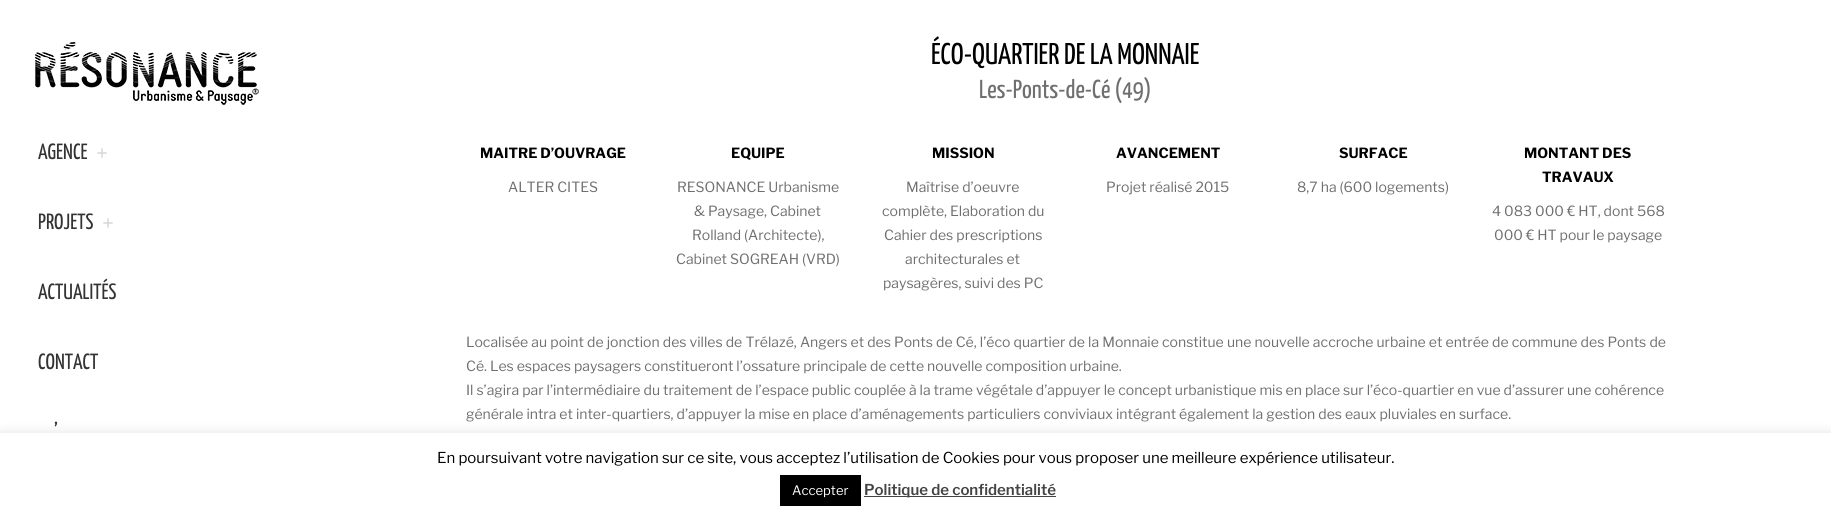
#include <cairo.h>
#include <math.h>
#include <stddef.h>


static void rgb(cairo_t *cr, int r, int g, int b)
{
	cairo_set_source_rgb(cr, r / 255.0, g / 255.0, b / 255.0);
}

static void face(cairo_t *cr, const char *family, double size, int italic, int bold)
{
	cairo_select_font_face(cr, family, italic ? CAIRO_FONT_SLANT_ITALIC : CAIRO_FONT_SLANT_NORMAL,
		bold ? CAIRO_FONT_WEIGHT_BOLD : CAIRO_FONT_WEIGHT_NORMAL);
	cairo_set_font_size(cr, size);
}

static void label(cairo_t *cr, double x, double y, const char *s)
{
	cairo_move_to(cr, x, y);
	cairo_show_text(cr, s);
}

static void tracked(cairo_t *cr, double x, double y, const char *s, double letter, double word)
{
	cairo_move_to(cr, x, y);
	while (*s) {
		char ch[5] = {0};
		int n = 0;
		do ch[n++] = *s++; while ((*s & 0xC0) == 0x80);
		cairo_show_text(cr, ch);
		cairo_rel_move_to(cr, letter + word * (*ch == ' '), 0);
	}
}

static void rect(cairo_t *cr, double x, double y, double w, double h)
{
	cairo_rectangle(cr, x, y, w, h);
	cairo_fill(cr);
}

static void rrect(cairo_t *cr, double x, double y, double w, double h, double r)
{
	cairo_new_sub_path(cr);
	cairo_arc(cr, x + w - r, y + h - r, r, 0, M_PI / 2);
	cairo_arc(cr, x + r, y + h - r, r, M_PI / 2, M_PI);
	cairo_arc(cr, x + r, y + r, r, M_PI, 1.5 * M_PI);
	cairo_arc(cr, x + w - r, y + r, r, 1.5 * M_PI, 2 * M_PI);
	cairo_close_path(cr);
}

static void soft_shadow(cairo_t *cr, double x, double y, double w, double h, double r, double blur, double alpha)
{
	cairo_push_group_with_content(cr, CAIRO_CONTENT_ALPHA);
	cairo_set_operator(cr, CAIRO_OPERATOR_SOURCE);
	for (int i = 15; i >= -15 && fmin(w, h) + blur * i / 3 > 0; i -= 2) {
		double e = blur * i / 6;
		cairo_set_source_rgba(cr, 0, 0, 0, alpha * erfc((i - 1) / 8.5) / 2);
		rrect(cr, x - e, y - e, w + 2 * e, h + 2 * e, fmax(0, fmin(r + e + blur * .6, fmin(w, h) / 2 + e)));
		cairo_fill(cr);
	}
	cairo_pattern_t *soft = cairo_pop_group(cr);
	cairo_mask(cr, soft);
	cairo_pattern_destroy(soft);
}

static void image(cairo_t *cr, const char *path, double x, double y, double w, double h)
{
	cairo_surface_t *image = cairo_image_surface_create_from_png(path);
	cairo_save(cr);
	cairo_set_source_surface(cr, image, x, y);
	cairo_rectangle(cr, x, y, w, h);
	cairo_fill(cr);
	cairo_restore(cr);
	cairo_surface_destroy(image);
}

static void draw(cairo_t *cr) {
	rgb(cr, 255, 255, 255);
	cairo_paint(cr);
	image(cr, "image0.png", 35, 42, 224, 63);
	face(cr, "Yanone Kaffeesatz", 22, 0, 0);
	rgb(cr, 51, 51, 51);
	label(cr, 38, 159, "AGENCE");
	image(cr, "image1.png", 97, 148, 10, 10);
	label(cr, 38, 229, "PROJETS");
	image(cr, "image1.png", 103, 218, 10, 10);
	label(cr, 38, 299, "ACTUALITÉS");
	label(cr, 38, 369, "CONTACT");
	label(cr, 54, 439, "’");
	face(cr, "Yanone Kaffeesatz", 30, 0, 0);
	rgb(cr, 0, 0, 0);
	label(cr, 931, 64, "ÉCO-QUARTIER DE LA MONNAIE");
	face(cr, "Yanone Kaffeesatz", 26, 0, 0);
	rgb(cr, 112, 111, 111);
	label(cr, 979, 98, "Les-Ponts-de-Cé (49)");
	face(cr, "Libre Franklin", 14, 0, 1);
	rgb(cr, 0, 0, 0);
	label(cr, 480, 158, "MAITRE D’OUVRAGE");
	face(cr, "Libre Franklin", 14, 0, 0);
	rgb(cr, 112, 111, 111);
	label(cr, 508, 192, "ALTER CITES");
	face(cr, "Libre Franklin", 14, 0, 1);
	rgb(cr, 0, 0, 0);
	label(cr, 731, 158, "EQUIPE");
	face(cr, "Libre Franklin", 14, 0, 0);
	rgb(cr, 112, 111, 111);
	label(cr, 677, 192, "RESONANCE Urbanisme");
	label(cr, 694, 216, "& Paysage, Cabinet");
	label(cr, 692, 240, "Rolland (Architecte),");
	label(cr, 676, 264, "Cabinet SOGREAH (VRD)");
	face(cr, "Libre Franklin", 14, 0, 1);
	rgb(cr, 0, 0, 0);
	label(cr, 932, 158, "MISSION");
	face(cr, "Libre Franklin", 14, 0, 0);
	rgb(cr, 112, 111, 111);
	label(cr, 906, 192, "Maîtrise d’oeuvre");
	label(cr, 882, 216, "complète, Elaboration du");
	label(cr, 884, 240, "Cahier des prescriptions");
	label(cr, 905, 264, "architecturales et");
	label(cr, 883, 288, "paysagères, suivi des PC");
	face(cr, "Libre Franklin", 14, 0, 1);
	rgb(cr, 0, 0, 0);
	label(cr, 1116, 158, "AVANCEMENT");
	face(cr, "Libre Franklin", 14, 0, 0);
	rgb(cr, 112, 111, 111);
	label(cr, 1106, 192, "Projet réalisé 2015");
	face(cr, "Libre Franklin", 14, 0, 1);
	rgb(cr, 0, 0, 0);
	label(cr, 1339, 158, "SURFACE");
	face(cr, "Libre Franklin", 14, 0, 0);
	rgb(cr, 112, 111, 111);
	label(cr, 1297, 192, "8,7 ha (600 logements)");
	face(cr, "Libre Franklin", 14, 0, 1);
	rgb(cr, 0, 0, 0);
	label(cr, 1524, 158, "MONTANT DES");
	label(cr, 1542, 182, "TRAVAUX");
	face(cr, "Libre Franklin", 14, 0, 0);
	rgb(cr, 112, 111, 111);
	label(cr, 1492, 216, "4 083 000 € HT, dont 568");
	label(cr, 1494, 240, "000 € HT pour le paysage");
	tracked(cr, 466, 347, "Localisée au point de jonction des villes de Trélazé, Angers et des Ponts de Cé, l’éco quartier de la Monnaie constitue une nouvelle accroche urbaine et entrée de commune des Ponts de", 0, 0.15);
	label(cr, 466, 371, "Cé. Les espaces paysagers constitueront l’ossature principale de cette nouvelle composition urbaine.");
	label(cr, 466, 395, "Il s’agira par l’intermédiaire du traitement de l’espace public couplée à la trame végétale d’appuyer le concept urbanistique mis en place sur l’éco-quartier en vue d’assurer une cohérence");
	label(cr, 466, 419, "générale intra et inter-quartiers, d’appuyer la mise en place d’aménagements particuliers conviviaux intégrant également la gestion des eaux pluviales en surface.");
	rgb(cr, 172, 171, 171);
	soft_shadow(cr, 0, 432, 1831, 85, 0, 5, 0.3);
	rgb(cr, 255, 255, 255);
	rect(cr, 0, 433, 1831, 85);
	face(cr, "Libre Franklin", 15, 0, 0);
	rgb(cr, 0, 0, 0);
	label(cr, 437, 463, "En poursuivant votre navigation sur ce site, vous acceptez l’utilisation de Cookies pour vous proposer une meilleure expérience utilisateur.");
	rect(cr, 780, 475, 81, 31);
	face(cr, "Libre Franklin", 13, 0, 0);
	rgb(cr, 255, 255, 255);
	label(cr, 792, 495, "Accepter");
	rgb(cr, 68, 68, 68);
	rect(cr, 864, 496, 192, 1);
	face(cr, "Libre Franklin SemiBold", 15, 0, 0);
	label(cr, 864, 495, "Politique de confidentialité");
}

int main(void) {
	cairo_surface_t *surface = cairo_image_surface_create(CAIRO_FORMAT_RGB24, 1831, 518);
	cairo_t *cr = cairo_create(surface);
	cairo_font_options_t *options = cairo_font_options_create();
	cairo_font_options_set_hint_metrics(options, CAIRO_HINT_METRICS_OFF);
	cairo_font_options_set_hint_style(options, CAIRO_HINT_STYLE_NONE);
	cairo_set_font_options(cr, options);
	cairo_set_miter_limit(cr, 4);
	draw(cr);
	cairo_surface_write_to_png(surface, "render.png");
	cairo_font_options_destroy(options);
	cairo_destroy(cr);
	cairo_surface_destroy(surface);
	return 0;
}
